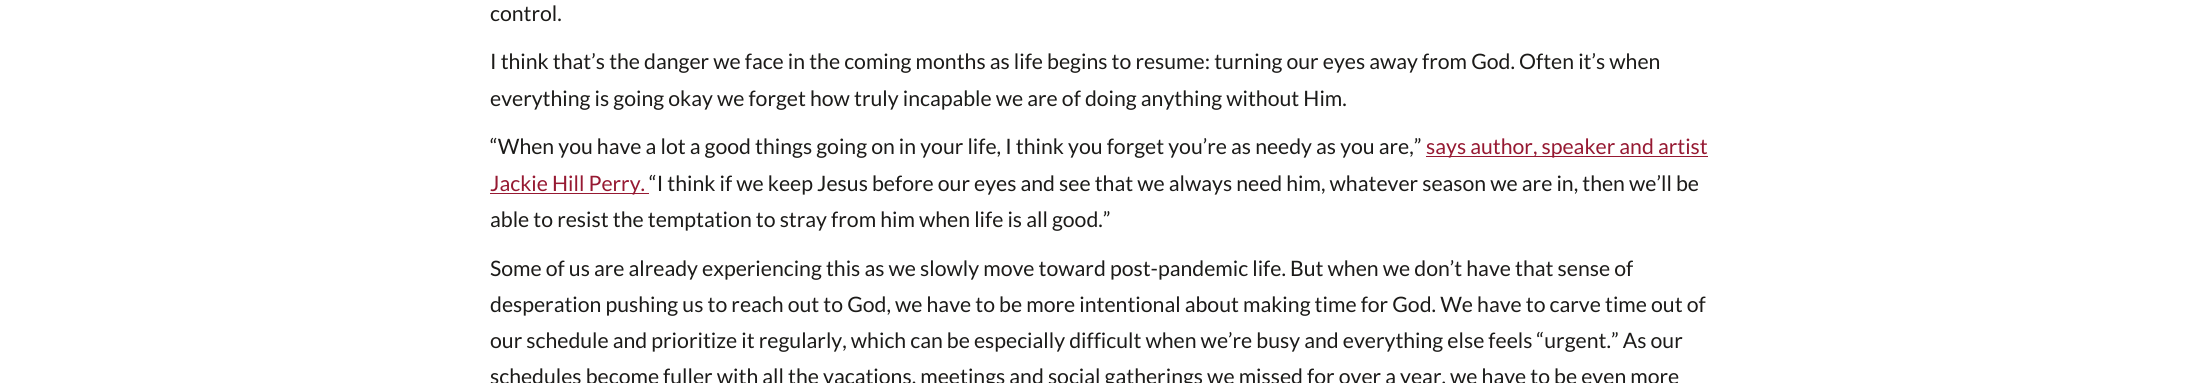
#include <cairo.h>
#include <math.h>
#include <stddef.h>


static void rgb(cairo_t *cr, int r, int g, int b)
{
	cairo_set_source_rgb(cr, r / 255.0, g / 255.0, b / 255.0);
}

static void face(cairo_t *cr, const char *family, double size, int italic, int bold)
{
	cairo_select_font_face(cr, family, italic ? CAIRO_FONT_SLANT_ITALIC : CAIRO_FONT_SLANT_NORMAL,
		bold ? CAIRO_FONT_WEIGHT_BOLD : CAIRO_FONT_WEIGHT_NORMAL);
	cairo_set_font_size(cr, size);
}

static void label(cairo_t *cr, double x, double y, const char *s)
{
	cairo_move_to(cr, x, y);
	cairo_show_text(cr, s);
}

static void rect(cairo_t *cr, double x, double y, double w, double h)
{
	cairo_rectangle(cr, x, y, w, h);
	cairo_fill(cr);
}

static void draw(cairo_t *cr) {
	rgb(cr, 255, 255, 255);
	cairo_paint(cr);
	face(cr, "Lato", 21.25, 0, 0);
	rgb(cr, 28, 27, 25);
	label(cr, 490, 21, "control.");
	label(cr, 490, 69, "I think that’s the danger we face in the coming months as life begins to resume: turning our eyes away from God. Often it’s when");
	label(cr, 490, 106, "everything is going okay we forget how truly incapable we are of doing anything without Him.");
	label(cr, 490, 154, "“When you have a lot a good things going on in your life, I think you forget you’re as needy as you are,”");
	rgb(cr, 150, 25, 50);
	rect(cr, 1426, 156, 282, 1);
	label(cr, 1426, 154, "says author, speaker and artist");
	rect(cr, 490, 193, 159, 1);
	label(cr, 490, 191, "Jackie Hill Perry.");
	rgb(cr, 28, 27, 25);
	label(cr, 649, 191, "“I think if we keep Jesus before our eyes and see that we always need him, whatever season we are in, then we’ll be");
	label(cr, 490, 227, "able to resist the temptation to stray from him when life is all good.”");
	label(cr, 490, 276, "Some of us are already experiencing this as we slowly move toward post-pandemic life. But when we don’t have that sense of");
	label(cr, 490, 312, "desperation pushing us to reach out to God, we have to be more intentional about making time for God. We have to carve time out of");
	label(cr, 490, 348, "our schedule and prioritize it regularly, which can be especially difficult when we’re busy and everything else feels “urgent.” As our");
	label(cr, 490, 384, "schedules become fuller with all the vacations, meetings and social gatherings we missed for over a year, we have to be even more");
}

int main(void) {
	cairo_surface_t *surface = cairo_image_surface_create(CAIRO_FORMAT_RGB24, 2204, 383);
	cairo_t *cr = cairo_create(surface);
	cairo_font_options_t *options = cairo_font_options_create();
	cairo_font_options_set_hint_metrics(options, CAIRO_HINT_METRICS_OFF);
	cairo_font_options_set_hint_style(options, CAIRO_HINT_STYLE_NONE);
	cairo_set_font_options(cr, options);
	cairo_set_miter_limit(cr, 4);
	draw(cr);
	cairo_surface_write_to_png(surface, "render.png");
	cairo_font_options_destroy(options);
	cairo_destroy(cr);
	cairo_surface_destroy(surface);
	return 0;
}
